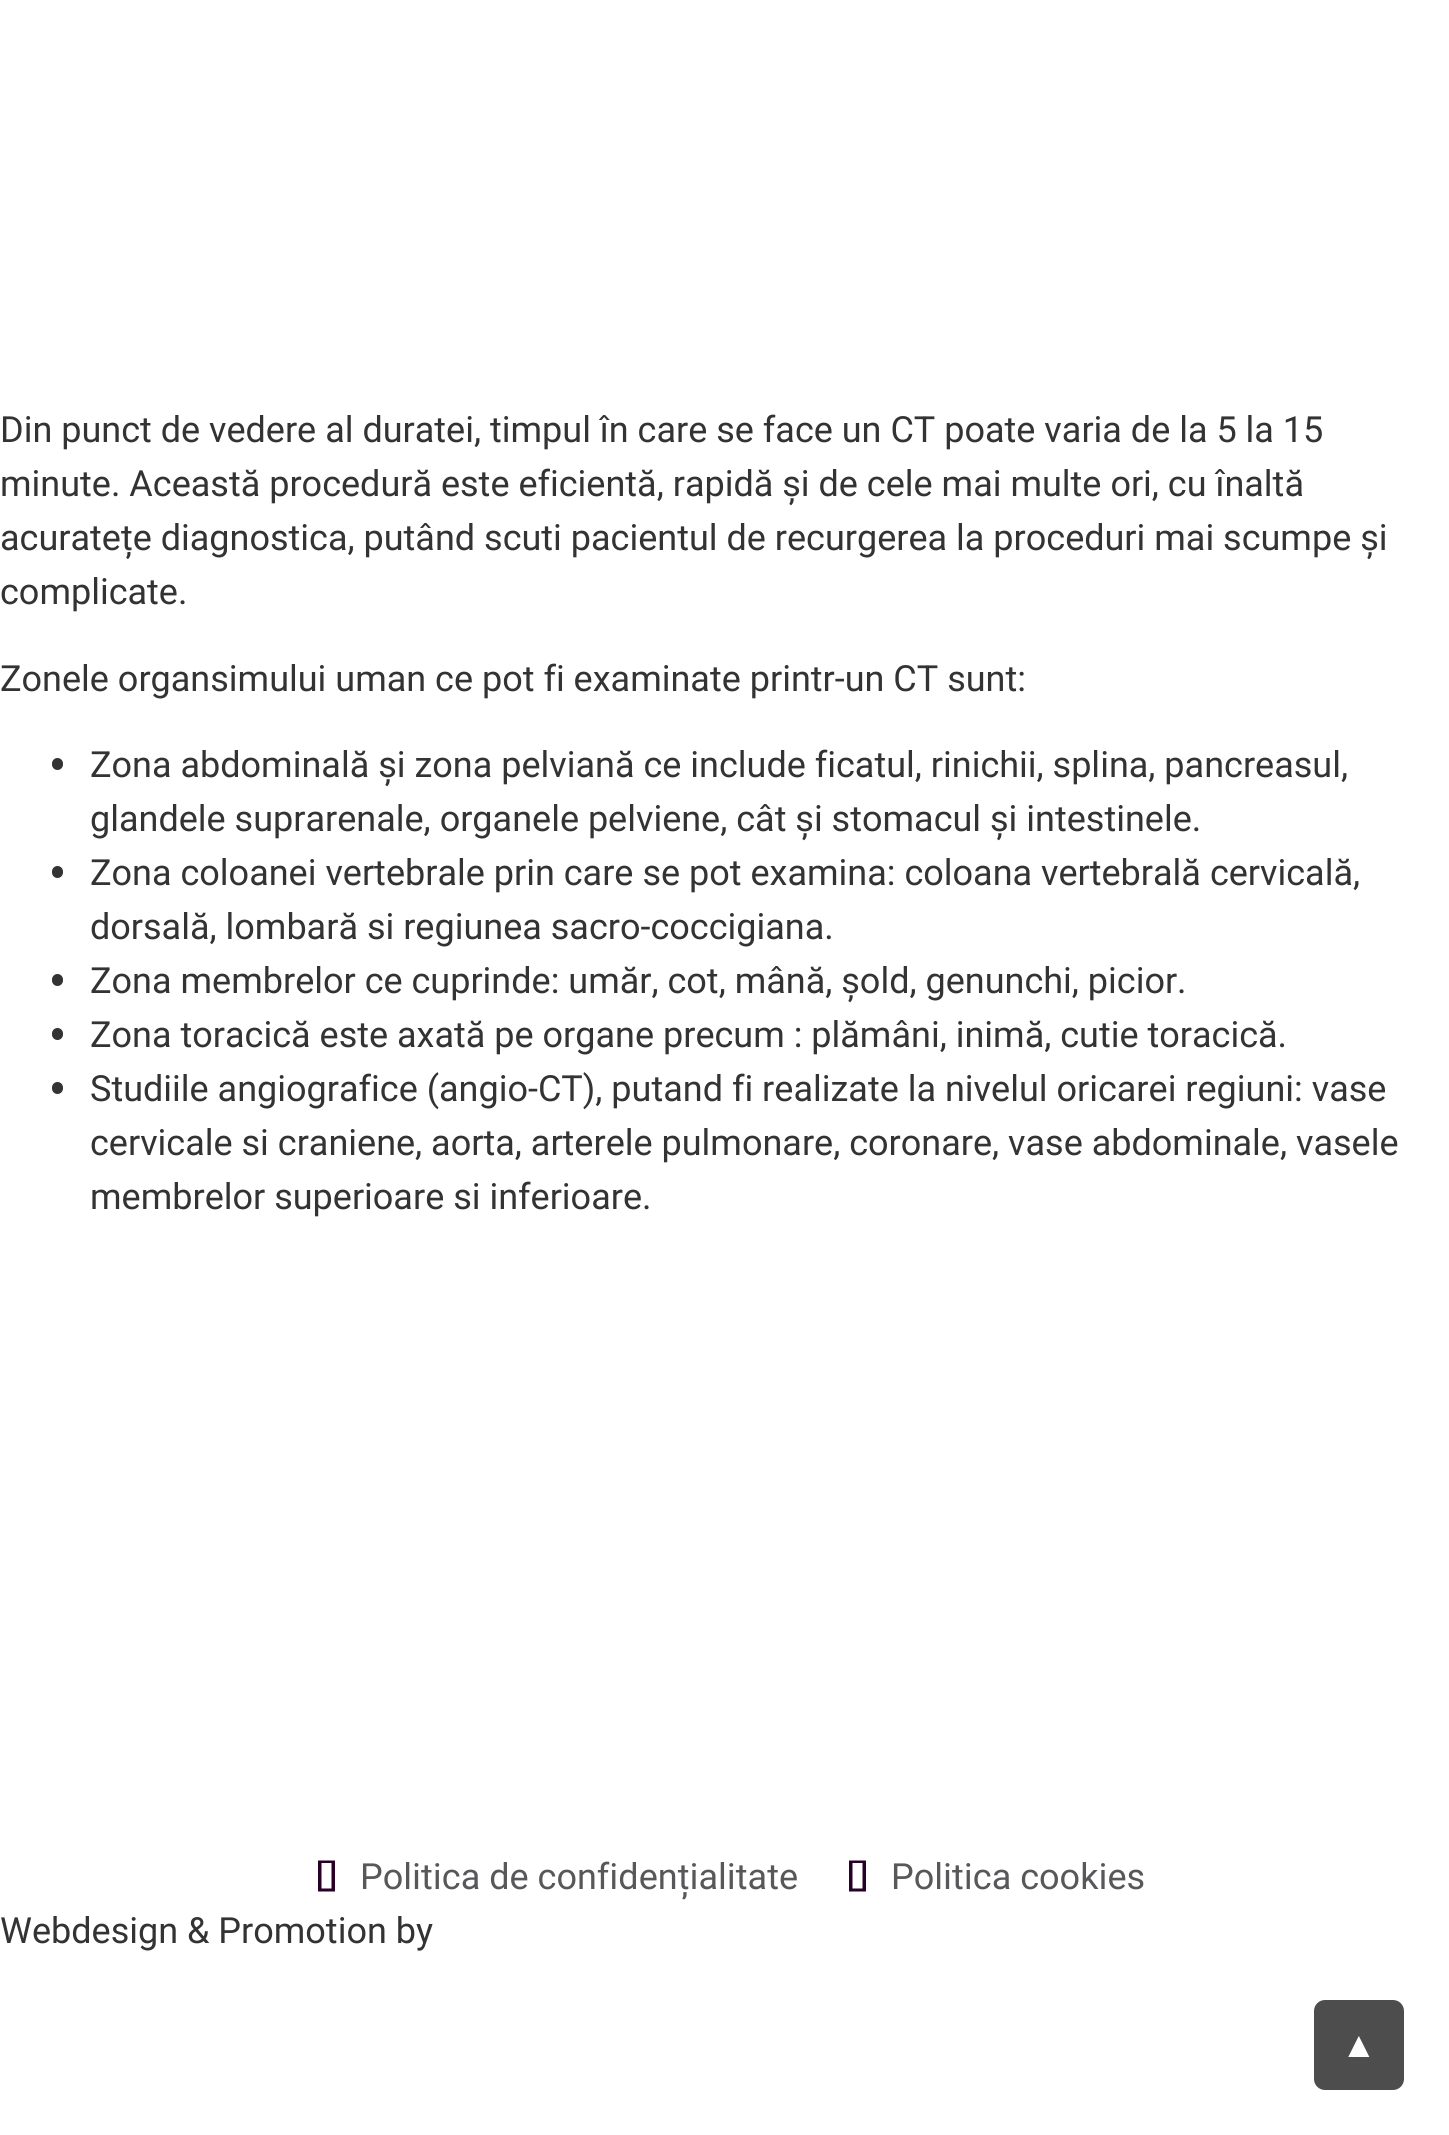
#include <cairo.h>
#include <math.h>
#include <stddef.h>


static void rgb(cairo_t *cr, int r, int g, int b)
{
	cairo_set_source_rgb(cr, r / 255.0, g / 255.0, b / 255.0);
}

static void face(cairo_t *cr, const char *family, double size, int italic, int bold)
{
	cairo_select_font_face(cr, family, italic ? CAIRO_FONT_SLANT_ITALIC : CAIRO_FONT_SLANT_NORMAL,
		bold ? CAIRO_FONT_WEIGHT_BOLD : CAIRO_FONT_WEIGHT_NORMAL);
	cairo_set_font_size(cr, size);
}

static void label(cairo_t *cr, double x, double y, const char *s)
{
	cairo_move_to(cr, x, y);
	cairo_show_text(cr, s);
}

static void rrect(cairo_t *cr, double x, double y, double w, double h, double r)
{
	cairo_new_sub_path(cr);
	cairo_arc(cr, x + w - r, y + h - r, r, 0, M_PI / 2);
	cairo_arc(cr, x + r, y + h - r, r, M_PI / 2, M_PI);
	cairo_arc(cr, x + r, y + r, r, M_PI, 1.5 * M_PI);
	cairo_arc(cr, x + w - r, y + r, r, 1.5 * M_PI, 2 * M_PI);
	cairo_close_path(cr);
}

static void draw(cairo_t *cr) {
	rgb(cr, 255, 255, 255);
	cairo_paint(cr);
	face(cr, "Roboto", 36, 0, 0);
	rgb(cr, 51, 51, 51);
	label(cr, 0, 442, "Din punct de vedere al duratei, timpul în care se face un CT poate varia de la 5 la 15");
	label(cr, 0, 496, "minute. Această procedură este eficientă, rapidă și de cele mai multe ori, cu înaltă");
	label(cr, 0, 550, "acuratețe diagnostica, putând scuti pacientul de recurgerea la proceduri mai scumpe și");
	label(cr, 0, 604, "complicate.");
	label(cr, 0, 691, "Zonele organsimului uman ce pot fi examinate printr-un CT sunt:");
	rrect(cr, 52, 758, 11, 12, 5.5);
	cairo_fill(cr);
	label(cr, 90, 777, "Zona abdominală și zona pelviană ce include ficatul, rinichii, splina, pancreasul,");
	label(cr, 90, 831, "glandele suprarenale, organele pelviene, cât și stomacul și intestinele.");
	rrect(cr, 52, 866, 11, 12, 5.5);
	cairo_fill(cr);
	label(cr, 90, 885, "Zona coloanei vertebrale prin care se pot examina: coloana vertebrală cervicală,");
	label(cr, 90, 939, "dorsală, lombară si regiunea sacro-coccigiana.");
	rrect(cr, 52, 974, 11, 12, 5.5);
	cairo_fill(cr);
	label(cr, 90, 993, "Zona membrelor ce cuprinde: umăr, cot, mână, șold, genunchi, picior.");
	rrect(cr, 52, 1028, 11, 12, 5.5);
	cairo_fill(cr);
	label(cr, 90, 1047, "Zona toracică este axată pe organe precum : plămâni, inimă, cutie toracică.");
	rrect(cr, 52, 1082, 11, 12, 5.5);
	cairo_fill(cr);
	label(cr, 90, 1101, "Studiile angiografice (angio-CT), putand fi realizate la nivelul oricarei regiuni: vase");
	label(cr, 90, 1155, "cervicale si craniene, aorta, arterele pulmonare, coronare, vase abdominale, vasele");
	label(cr, 90, 1209, "membrelor superioare si inferioare.");
	rgb(cr, 41, 0, 37);
	cairo_new_path(cr);
	cairo_move_to(cr, 318, 1891.5);
	cairo_line_to(cr, 318, 1860.5);
	cairo_line_to(cr, 335, 1860.5);
	cairo_line_to(cr, 335, 1891.5);
	cairo_close_path(cr);
	cairo_move_to(cr, 321.5, 1888.5);
	cairo_line_to(cr, 331.5, 1888.5);
	cairo_line_to(cr, 331.5, 1863);
	cairo_line_to(cr, 321.5, 1863);
	cairo_close_path(cr);
	cairo_fill(cr);
	face(cr, "Heebo", 36, 0, 0);
	rgb(cr, 88, 88, 90);
	label(cr, 360, 1889, "Politica de confidențialitate");
	rgb(cr, 41, 0, 37);
	cairo_new_path(cr);
	cairo_move_to(cr, 849, 1891.5);
	cairo_line_to(cr, 849, 1860.5);
	cairo_line_to(cr, 866, 1860.5);
	cairo_line_to(cr, 866, 1891.5);
	cairo_close_path(cr);
	cairo_move_to(cr, 852.5, 1888.5);
	cairo_line_to(cr, 862.5, 1888.5);
	cairo_line_to(cr, 862.5, 1863);
	cairo_line_to(cr, 852.5, 1863);
	cairo_close_path(cr);
	cairo_fill(cr);
	rgb(cr, 88, 88, 90);
	label(cr, 891, 1889, "Politica cookies");
	face(cr, "Roboto", 36, 0, 0);
	rgb(cr, 51, 51, 51);
	label(cr, 0, 1943, "Webdesign & Promotion by");
	rgb(cr, 77, 77, 77);
	rrect(cr, 1314, 2000, 90, 90, 11);
	cairo_fill(cr);
	face(cr, "Liberation Sans", 36, 0, 0);
	rgb(cr, 255, 255, 255);
	label(cr, 1341, 2057, "▲");
}

int main(void) {
	cairo_surface_t *surface = cairo_image_surface_create(CAIRO_FORMAT_RGB24, 1449, 2135);
	cairo_t *cr = cairo_create(surface);
	cairo_font_options_t *options = cairo_font_options_create();
	cairo_font_options_set_hint_metrics(options, CAIRO_HINT_METRICS_OFF);
	cairo_font_options_set_hint_style(options, CAIRO_HINT_STYLE_NONE);
	cairo_set_font_options(cr, options);
	cairo_set_miter_limit(cr, 4);
	draw(cr);
	cairo_surface_write_to_png(surface, "render.png");
	cairo_font_options_destroy(options);
	cairo_destroy(cr);
	cairo_surface_destroy(surface);
	return 0;
}
